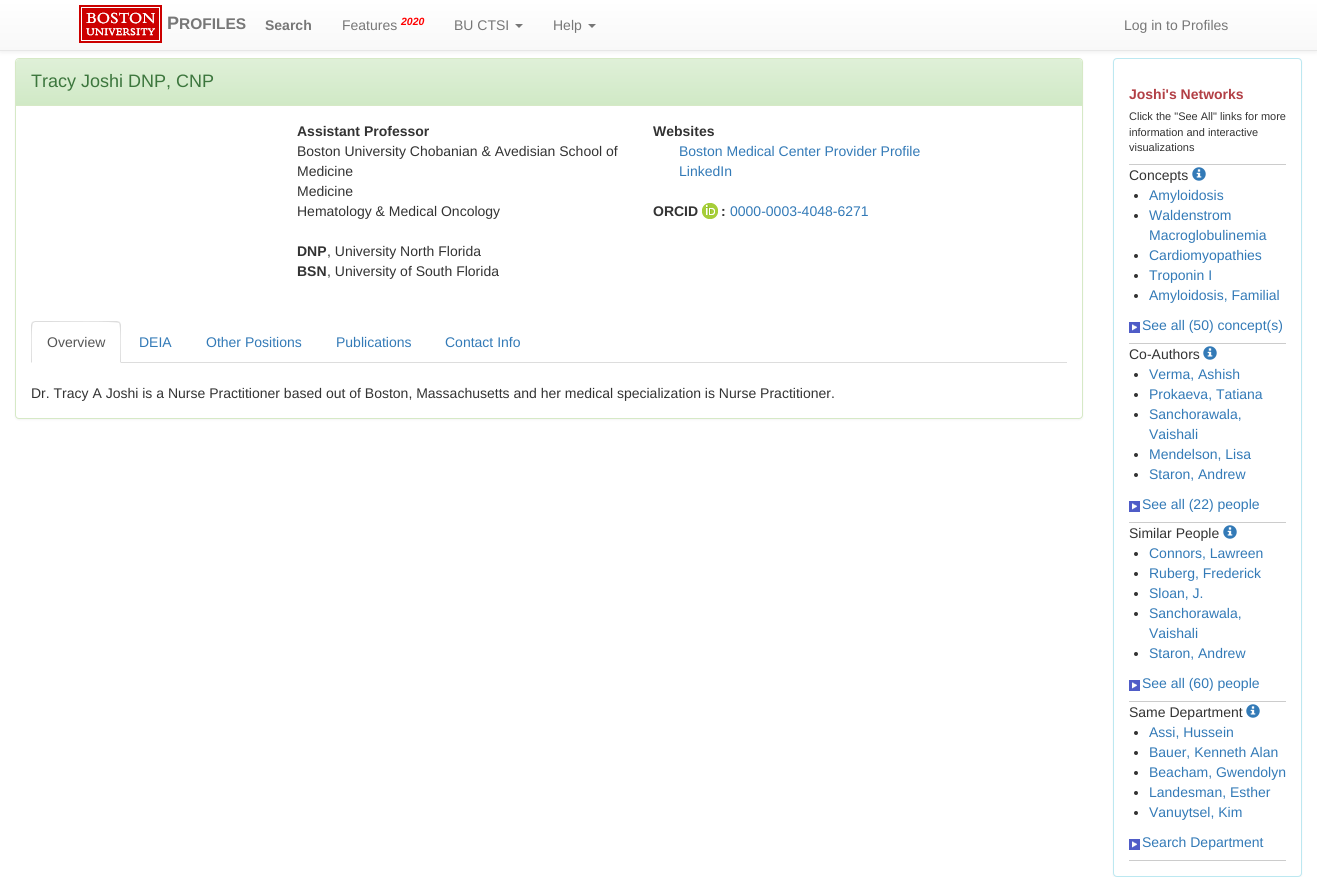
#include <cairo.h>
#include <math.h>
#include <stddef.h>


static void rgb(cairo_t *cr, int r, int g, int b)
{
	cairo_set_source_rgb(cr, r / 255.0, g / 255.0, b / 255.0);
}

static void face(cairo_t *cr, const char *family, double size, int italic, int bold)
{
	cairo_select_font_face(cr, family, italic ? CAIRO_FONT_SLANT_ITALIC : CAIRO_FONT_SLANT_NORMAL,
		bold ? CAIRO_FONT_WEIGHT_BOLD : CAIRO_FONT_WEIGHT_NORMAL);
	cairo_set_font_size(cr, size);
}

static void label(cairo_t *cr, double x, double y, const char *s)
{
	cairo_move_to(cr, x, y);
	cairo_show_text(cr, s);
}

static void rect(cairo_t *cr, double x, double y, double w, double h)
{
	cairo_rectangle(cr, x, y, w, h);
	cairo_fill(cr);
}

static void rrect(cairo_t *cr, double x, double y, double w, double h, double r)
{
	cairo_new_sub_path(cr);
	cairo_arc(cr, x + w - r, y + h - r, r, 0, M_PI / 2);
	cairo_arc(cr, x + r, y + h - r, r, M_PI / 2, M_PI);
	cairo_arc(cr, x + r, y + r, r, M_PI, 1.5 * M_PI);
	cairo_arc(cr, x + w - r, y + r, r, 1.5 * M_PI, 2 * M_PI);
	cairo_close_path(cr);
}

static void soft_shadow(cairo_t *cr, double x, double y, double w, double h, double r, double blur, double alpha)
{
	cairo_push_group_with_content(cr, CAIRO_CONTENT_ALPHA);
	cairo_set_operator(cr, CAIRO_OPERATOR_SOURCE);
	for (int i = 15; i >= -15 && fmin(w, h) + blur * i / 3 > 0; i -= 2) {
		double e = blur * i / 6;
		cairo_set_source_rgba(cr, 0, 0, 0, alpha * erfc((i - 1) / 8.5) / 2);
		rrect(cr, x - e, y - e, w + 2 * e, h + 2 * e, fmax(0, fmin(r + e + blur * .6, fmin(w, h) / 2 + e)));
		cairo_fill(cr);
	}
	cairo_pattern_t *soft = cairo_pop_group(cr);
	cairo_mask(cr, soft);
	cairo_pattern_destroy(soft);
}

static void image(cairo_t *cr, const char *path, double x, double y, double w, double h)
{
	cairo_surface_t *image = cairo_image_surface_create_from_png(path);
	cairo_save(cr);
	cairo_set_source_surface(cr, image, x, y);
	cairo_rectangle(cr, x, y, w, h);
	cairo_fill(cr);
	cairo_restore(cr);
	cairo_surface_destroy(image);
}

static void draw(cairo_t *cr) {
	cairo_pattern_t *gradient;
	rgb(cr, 255, 255, 255);
	cairo_paint(cr);
	rgb(cr, 0, 0, 0);
	soft_shadow(cr, 15, 59, 1068, 361, 4, 1, 0.05);
	rgb(cr, 255, 255, 255);
	rrect(cr, 15.5, 58.5, 1067, 360, 3.5);
	cairo_fill_preserve(cr);
	rgb(cr, 214, 233, 198);
	cairo_set_line_width(cr, 1);
	cairo_stroke(cr);
	gradient = cairo_pattern_create_linear(549, 59, 549, 105);
	cairo_pattern_add_color_stop_rgba(gradient, 0, 0.875, 0.941, 0.847, 1);
	cairo_pattern_add_color_stop_rgba(gradient, 1, 0.816, 0.914, 0.776, 1);
	cairo_set_source(cr, gradient);
	cairo_pattern_destroy(gradient);
	cairo_new_path(cr);
	cairo_move_to(cr, 19, 59);
	cairo_line_to(cr, 1079, 59);
	cairo_curve_to(cr, 1080.5, 59, 1082, 60.5, 1082, 62);
	cairo_line_to(cr, 1082, 105);
	cairo_line_to(cr, 16, 105);
	cairo_line_to(cr, 16, 62);
	cairo_curve_to(cr, 16, 60.5, 17.5, 59, 19, 59);
	cairo_close_path(cr);
	cairo_fill(cr);
	rgb(cr, 0, 0, 0);
	soft_shadow(cr, 1113, 59, 189, 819, 4, 1, 0.05);
	rgb(cr, 255, 255, 255);
	rrect(cr, 1113.5, 58.5, 188, 818, 3.5);
	cairo_fill_preserve(cr);
	rgb(cr, 188, 232, 241);
	cairo_stroke(cr);
	rgb(cr, 0, 0, 0);
	soft_shadow(cr, 0, 1, 1317, 51, 0, 2.5, 0.07);
	gradient = cairo_pattern_create_linear(659, 0, 659, 50);
	cairo_pattern_add_color_stop_rgba(gradient, 0, 1, 1, 1, 1);
	cairo_pattern_add_color_stop_rgba(gradient, 1, 0.973, 0.973, 0.973, 1);
	cairo_set_source(cr, gradient);
	cairo_pattern_destroy(gradient);
	rect(cr, 0, 0, 1317, 50);
	rgb(cr, 231, 231, 231);
	rect(cr, 0, 50, 1317, 1);
	image(cr, "image0.png", 79, 5, 83, 38);
	face(cr, "Liberation Sans", 18, 0, 1);
	rgb(cr, 119, 119, 119);
	label(cr, 167, 29, "P");
	face(cr, "Liberation Sans", 15.5, 0, 1);
	label(cr, 179, 29, "ROFILES");
	face(cr, "Liberation Sans", 14, 0, 1);
	label(cr, 265, 30, "Search");
	face(cr, "Liberation Sans", 14, 0, 0);
	label(cr, 342, 30, "Features");
	face(cr, "Liberation Sans", 10.5, 1, 1);
	rgb(cr, 255, 0, 0);
	label(cr, 401, 25, "2020");
	face(cr, "Liberation Sans", 14, 0, 0);
	rgb(cr, 119, 119, 119);
	label(cr, 454, 30, "BU CTSI");
	cairo_new_path(cr);
	cairo_move_to(cr, 515, 24);
	cairo_line_to(cr, 523, 24);
	cairo_line_to(cr, 519, 28);
	cairo_close_path(cr);
	cairo_fill(cr);
	label(cr, 553, 30, "Help");
	cairo_new_path(cr);
	cairo_move_to(cr, 588, 24);
	cairo_line_to(cr, 596, 24);
	cairo_line_to(cr, 592, 28);
	cairo_close_path(cr);
	cairo_fill(cr);
	label(cr, 1124, 30, "Log in to Profiles");
	rgb(cr, 214, 233, 198);
	rect(cr, 16, 105, 1066, 1);
	face(cr, "Liberation Sans", 18, 0, 0);
	rgb(cr, 60, 118, 61);
	label(cr, 31, 87, "Tracy Joshi DNP, CNP");
	face(cr, "Liberation Sans", 14, 0, 1);
	rgb(cr, 51, 51, 51);
	label(cr, 297, 136, "Assistant Professor");
	face(cr, "Liberation Sans", 14, 0, 0);
	label(cr, 297, 156, "Boston University Chobanian & Avedisian School of");
	label(cr, 297, 176, "Medicine");
	label(cr, 297, 196, "Medicine");
	label(cr, 297, 216, "Hematology & Medical Oncology");
	face(cr, "Liberation Sans", 14, 0, 1);
	label(cr, 297, 256, "DNP");
	face(cr, "Liberation Sans", 14, 0, 0);
	label(cr, 327, 256, ", University North Florida");
	face(cr, "Liberation Sans", 14, 0, 1);
	label(cr, 297, 276, "BSN");
	face(cr, "Liberation Sans", 14, 0, 0);
	label(cr, 327, 276, ", University of South Florida");
	face(cr, "Liberation Sans", 14, 0, 1);
	label(cr, 653, 136, "Websites");
	face(cr, "Liberation Sans", 14, 0, 0);
	rgb(cr, 51, 122, 183);
	label(cr, 679, 156, "Boston Medical Center Provider Profile");
	label(cr, 679, 176, "LinkedIn");
	face(cr, "Liberation Sans", 14, 0, 1);
	rgb(cr, 51, 51, 51);
	label(cr, 653, 216, "ORCID");
	image(cr, "image1.png", 702, 203, 16, 16);
	label(cr, 721, 216, ":");
	face(cr, "Liberation Sans", 14, 0, 0);
	rgb(cr, 51, 122, 183);
	label(cr, 730, 216, "0000-0003-4048-6271");
	rgb(cr, 221, 221, 221);
	rect(cr, 121, 362, 946, 1);
	cairo_new_path(cr);
	cairo_move_to(cr, 35, 321);
	cairo_line_to(cr, 32, 322);
	cairo_line_to(cr, 33, 323);
	cairo_line_to(cr, 35, 322);
	cairo_line_to(cr, 49, 322);
	cairo_curve_to(cr, 56, 322, 117, 321, 119, 323);
	cairo_line_to(cr, 120, 322);
	cairo_line_to(cr, 117, 321);
	cairo_close_path(cr);
	cairo_fill(cr);
	cairo_new_path(cr);
	cairo_move_to(cr, 121, 363);
	cairo_line_to(cr, 121, 325);
	cairo_curve_to(cr, 121, 324, 120, 323, 120, 322);
	cairo_line_to(cr, 119, 323);
	cairo_curve_to(cr, 121, 325, 120, 357, 120, 362);
	cairo_close_path(cr);
	cairo_fill(cr);
	cairo_new_path(cr);
	cairo_move_to(cr, 31, 363);
	cairo_line_to(cr, 32, 362);
	cairo_curve_to(cr, 32, 357, 31, 325, 33, 323);
	cairo_line_to(cr, 32, 322);
	cairo_line_to(cr, 31, 325);
	cairo_close_path(cr);
	cairo_fill(cr);
	rgb(cr, 85, 85, 85);
	label(cr, 47, 347, "Overview");
	rgb(cr, 51, 122, 183);
	label(cr, 139, 347, "DEIA");
	label(cr, 206, 347, "Other Positions");
	label(cr, 336, 347, "Publications");
	label(cr, 445, 347, "Contact Info");
	rgb(cr, 51, 51, 51);
	label(cr, 31, 398, "Dr. Tracy A Joshi is a Nurse Practitioner based out of Boston, Massachusetts and her medical specialization is Nurse Practitioner.");
	face(cr, "Liberation Sans", 14, 0, 1);
	rgb(cr, 178, 63, 69);
	label(cr, 1129, 99, "Joshi's Networks");
	face(cr, "Liberation Sans", 11, 0, 0);
	rgb(cr, 51, 51, 51);
	label(cr, 1129, 120, "Click the \"See All\" links for more");
	label(cr, 1129, 136, "information and interactive");
	label(cr, 1129, 151, "visualizations");
	rgb(cr, 204, 204, 204);
	rect(cr, 1129, 164, 157, 1);
	face(cr, "Liberation Sans", 14, 0, 0);
	rgb(cr, 51, 51, 51);
	label(cr, 1129, 180, "Concepts");
	image(cr, "image2.png", 1192, 167, 14, 14);
	cairo_arc(cr, 1136, 196, 2, 0, 2 * M_PI);
	cairo_fill(cr);
	rgb(cr, 51, 122, 183);
	label(cr, 1149, 200, "Amyloidosis");
	rgb(cr, 51, 51, 51);
	cairo_new_path(cr);
	cairo_arc(cr, 1136, 216, 2, 0, 2 * M_PI);
	cairo_fill(cr);
	rgb(cr, 51, 122, 183);
	label(cr, 1149, 220, "Waldenstrom");
	label(cr, 1149, 240, "Macroglobulinemia");
	rgb(cr, 51, 51, 51);
	cairo_new_path(cr);
	cairo_arc(cr, 1136, 256, 2, 0, 2 * M_PI);
	cairo_fill(cr);
	rgb(cr, 51, 122, 183);
	label(cr, 1149, 260, "Cardiomyopathies");
	rgb(cr, 51, 51, 51);
	cairo_new_path(cr);
	cairo_arc(cr, 1136, 276, 2, 0, 2 * M_PI);
	cairo_fill(cr);
	rgb(cr, 51, 122, 183);
	label(cr, 1149, 280, "Troponin I");
	rgb(cr, 51, 51, 51);
	cairo_new_path(cr);
	cairo_arc(cr, 1136, 296, 2, 0, 2 * M_PI);
	cairo_fill(cr);
	rgb(cr, 51, 122, 183);
	label(cr, 1149, 300, "Amyloidosis, Familial");
	image(cr, "image3.png", 1129, 322, 11, 11);
	label(cr, 1142, 330, "See all (50) concept(s)");
	rgb(cr, 204, 204, 204);
	rect(cr, 1129, 343, 157, 1);
	rgb(cr, 51, 51, 51);
	label(cr, 1129, 359, "Co-Authors");
	image(cr, "image2.png", 1203, 346, 14, 14);
	cairo_arc(cr, 1136, 375, 2, 0, 2 * M_PI);
	cairo_fill(cr);
	rgb(cr, 51, 122, 183);
	label(cr, 1149, 379, "Verma, Ashish");
	rgb(cr, 51, 51, 51);
	cairo_new_path(cr);
	cairo_arc(cr, 1136, 395, 2, 0, 2 * M_PI);
	cairo_fill(cr);
	rgb(cr, 51, 122, 183);
	label(cr, 1149, 399, "Prokaeva, Tatiana");
	rgb(cr, 51, 51, 51);
	cairo_new_path(cr);
	cairo_arc(cr, 1136, 415, 2, 0, 2 * M_PI);
	cairo_fill(cr);
	rgb(cr, 51, 122, 183);
	label(cr, 1149, 419, "Sanchorawala,");
	label(cr, 1149, 439, "Vaishali");
	rgb(cr, 51, 51, 51);
	cairo_new_path(cr);
	cairo_arc(cr, 1136, 455, 2, 0, 2 * M_PI);
	cairo_fill(cr);
	rgb(cr, 51, 122, 183);
	label(cr, 1149, 459, "Mendelson, Lisa");
	rgb(cr, 51, 51, 51);
	cairo_new_path(cr);
	cairo_arc(cr, 1136, 475, 2, 0, 2 * M_PI);
	cairo_fill(cr);
	rgb(cr, 51, 122, 183);
	label(cr, 1149, 479, "Staron, Andrew");
	image(cr, "image3.png", 1129, 501, 11, 11);
	label(cr, 1142, 509, "See all (22) people");
	rgb(cr, 204, 204, 204);
	rect(cr, 1129, 522, 157, 1);
	rgb(cr, 51, 51, 51);
	label(cr, 1129, 538, "Similar People");
	image(cr, "image2.png", 1223, 525, 14, 14);
	cairo_arc(cr, 1136, 554, 2, 0, 2 * M_PI);
	cairo_fill(cr);
	rgb(cr, 51, 122, 183);
	label(cr, 1149, 558, "Connors, Lawreen");
	rgb(cr, 51, 51, 51);
	cairo_new_path(cr);
	cairo_arc(cr, 1136, 574, 2, 0, 2 * M_PI);
	cairo_fill(cr);
	rgb(cr, 51, 122, 183);
	label(cr, 1149, 578, "Ruberg, Frederick");
	rgb(cr, 51, 51, 51);
	cairo_new_path(cr);
	cairo_arc(cr, 1136, 594, 2, 0, 2 * M_PI);
	cairo_fill(cr);
	rgb(cr, 51, 122, 183);
	label(cr, 1149, 598, "Sloan, J.");
	rgb(cr, 51, 51, 51);
	cairo_new_path(cr);
	cairo_arc(cr, 1136, 614, 2, 0, 2 * M_PI);
	cairo_fill(cr);
	rgb(cr, 51, 122, 183);
	label(cr, 1149, 618, "Sanchorawala,");
	label(cr, 1149, 638, "Vaishali");
	rgb(cr, 51, 51, 51);
	cairo_new_path(cr);
	cairo_arc(cr, 1136, 654, 2, 0, 2 * M_PI);
	cairo_fill(cr);
	rgb(cr, 51, 122, 183);
	label(cr, 1149, 658, "Staron, Andrew");
	image(cr, "image3.png", 1129, 680, 11, 11);
	label(cr, 1142, 688, "See all (60) people");
	rgb(cr, 204, 204, 204);
	rect(cr, 1129, 701, 157, 1);
	rgb(cr, 51, 51, 51);
	label(cr, 1129, 717, "Same Department");
	image(cr, "image2.png", 1246, 704, 14, 14);
	cairo_arc(cr, 1136, 733, 2, 0, 2 * M_PI);
	cairo_fill(cr);
	rgb(cr, 51, 122, 183);
	label(cr, 1149, 737, "Assi, Hussein");
	rgb(cr, 51, 51, 51);
	cairo_new_path(cr);
	cairo_arc(cr, 1136, 753, 2, 0, 2 * M_PI);
	cairo_fill(cr);
	rgb(cr, 51, 122, 183);
	label(cr, 1149, 757, "Bauer, Kenneth Alan");
	rgb(cr, 51, 51, 51);
	cairo_new_path(cr);
	cairo_arc(cr, 1136, 773, 2, 0, 2 * M_PI);
	cairo_fill(cr);
	rgb(cr, 51, 122, 183);
	label(cr, 1149, 777, "Beacham, Gwendolyn");
	rgb(cr, 51, 51, 51);
	cairo_new_path(cr);
	cairo_arc(cr, 1136, 793, 2, 0, 2 * M_PI);
	cairo_fill(cr);
	rgb(cr, 51, 122, 183);
	label(cr, 1149, 797, "Landesman, Esther");
	rgb(cr, 51, 51, 51);
	cairo_new_path(cr);
	cairo_arc(cr, 1136, 813, 2, 0, 2 * M_PI);
	cairo_fill(cr);
	rgb(cr, 51, 122, 183);
	label(cr, 1149, 817, "Vanuytsel, Kim");
	image(cr, "image3.png", 1129, 839, 11, 11);
	label(cr, 1142, 847, "Search Department");
	rgb(cr, 204, 204, 204);
	rect(cr, 1129, 860, 157, 1);
}

int main(void) {
	cairo_surface_t *surface = cairo_image_surface_create(CAIRO_FORMAT_RGB24, 1317, 877);
	cairo_t *cr = cairo_create(surface);
	cairo_font_options_t *options = cairo_font_options_create();
	cairo_font_options_set_hint_metrics(options, CAIRO_HINT_METRICS_OFF);
	cairo_font_options_set_hint_style(options, CAIRO_HINT_STYLE_NONE);
	cairo_set_font_options(cr, options);
	cairo_set_miter_limit(cr, 4);
	draw(cr);
	cairo_surface_write_to_png(surface, "render.png");
	cairo_font_options_destroy(options);
	cairo_destroy(cr);
	cairo_surface_destroy(surface);
	return 0;
}
